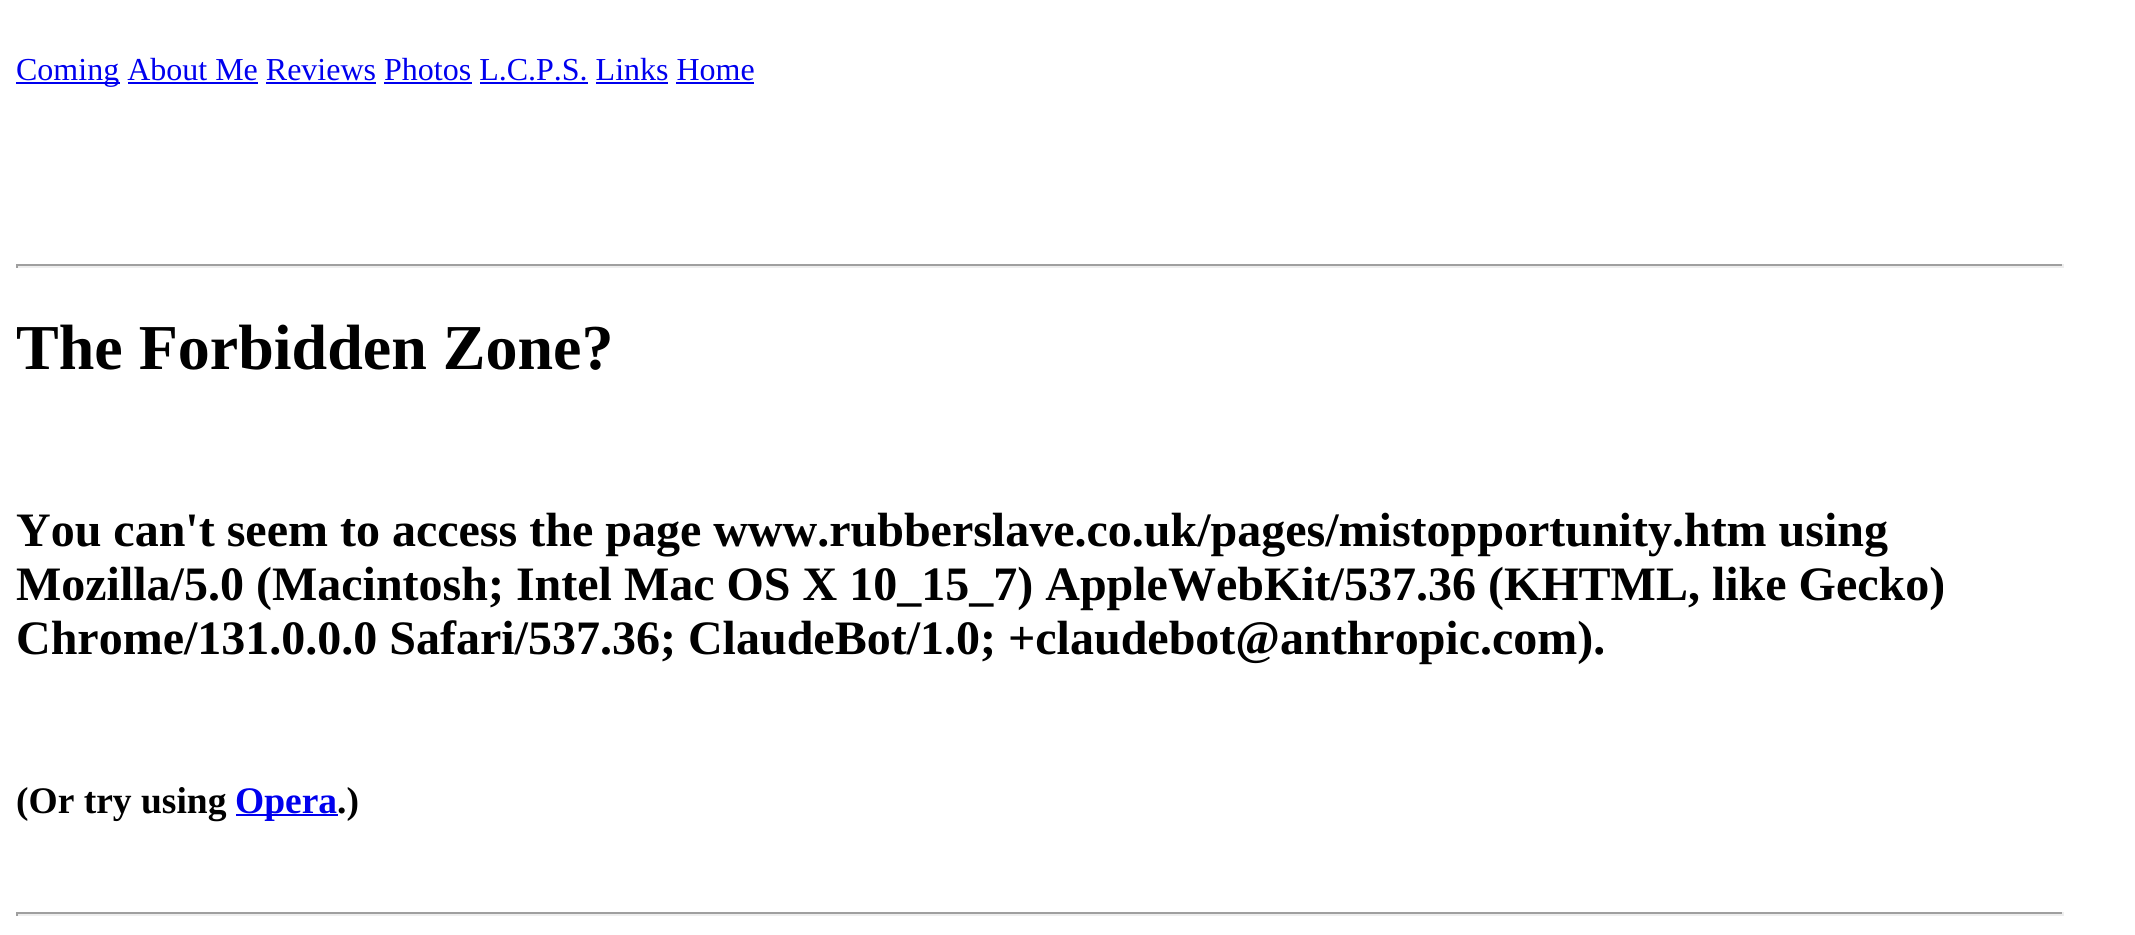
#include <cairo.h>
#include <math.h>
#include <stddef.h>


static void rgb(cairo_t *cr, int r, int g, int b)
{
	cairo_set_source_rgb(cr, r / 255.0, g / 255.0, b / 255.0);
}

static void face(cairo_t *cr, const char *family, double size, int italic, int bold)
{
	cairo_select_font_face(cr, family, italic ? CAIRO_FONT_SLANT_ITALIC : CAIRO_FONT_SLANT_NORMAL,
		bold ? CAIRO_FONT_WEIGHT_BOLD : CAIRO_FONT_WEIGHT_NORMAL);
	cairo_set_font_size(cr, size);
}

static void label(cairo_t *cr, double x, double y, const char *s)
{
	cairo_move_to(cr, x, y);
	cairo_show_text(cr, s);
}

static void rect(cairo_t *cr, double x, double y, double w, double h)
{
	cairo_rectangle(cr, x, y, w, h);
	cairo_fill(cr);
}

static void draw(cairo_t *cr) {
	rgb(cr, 255, 255, 255);
	cairo_paint(cr);
	rgb(cr, 0, 0, 238);
	rect(cr, 16, 82, 104, 2);
	face(cr, "Liberation Serif", 32, 0, 0);
	label(cr, 16, 80, "Coming About Me Reviews Photos L.C.P.S. Links Home");
	rect(cr, 128, 82, 130, 2);
	rect(cr, 266, 82, 110, 2);
	rect(cr, 384, 82, 88, 2);
	rect(cr, 480, 82, 108, 2);
	rect(cr, 596, 82, 72, 2);
	rect(cr, 676, 82, 78, 2);
	rgb(cr, 159, 159, 159);
	rect(cr, 16, 264, 2048, 2);
	rgb(cr, 238, 238, 238);
	rect(cr, 2062, 264, 2, 4);
	rect(cr, 16, 266, 2048, 2);
	rgb(cr, 159, 159, 159);
	rect(cr, 16, 264, 2, 4);
	face(cr, "Liberation Serif", 64, 0, 1);
	rgb(cr, 0, 0, 0);
	label(cr, 16, 369, "The Forbidden Zone?");
	face(cr, "Liberation Serif", 48, 0, 1);
	label(cr, 16, 546, "You can't seem to access the page www.rubberslave.co.uk/pages/mistopportunity.htm using");
	label(cr, 16, 600, "Mozilla/5.0 (Macintosh; Intel Mac OS X 10_15_7) AppleWebKit/537.36 (KHTML, like Gecko)");
	label(cr, 16, 654, "Chrome/131.0.0.0 Safari/537.36; ClaudeBot/1.0; +claudebot@anthropic.com).");
	face(cr, "Liberation Serif", 37.5, 0, 1);
	label(cr, 16, 813, "(Or try using");
	rgb(cr, 0, 0, 238);
	rect(cr, 236, 814, 102, 2);
	label(cr, 235, 813, "Opera");
	rgb(cr, 0, 0, 0);
	label(cr, 337, 813, ".)");
	rgb(cr, 159, 159, 159);
	rect(cr, 16, 912, 2048, 2);
	rgb(cr, 238, 238, 238);
	rect(cr, 2062, 912, 2, 4);
	rect(cr, 16, 914, 2048, 2);
	rgb(cr, 159, 159, 159);
	rect(cr, 16, 912, 2, 4);
}

int main(void) {
	cairo_surface_t *surface = cairo_image_surface_create(CAIRO_FORMAT_RGB24, 2135, 935);
	cairo_t *cr = cairo_create(surface);
	cairo_font_options_t *options = cairo_font_options_create();
	cairo_font_options_set_hint_metrics(options, CAIRO_HINT_METRICS_OFF);
	cairo_font_options_set_hint_style(options, CAIRO_HINT_STYLE_NONE);
	cairo_set_font_options(cr, options);
	cairo_set_miter_limit(cr, 4);
	draw(cr);
	cairo_surface_write_to_png(surface, "render.png");
	cairo_font_options_destroy(options);
	cairo_destroy(cr);
	cairo_surface_destroy(surface);
	return 0;
}
